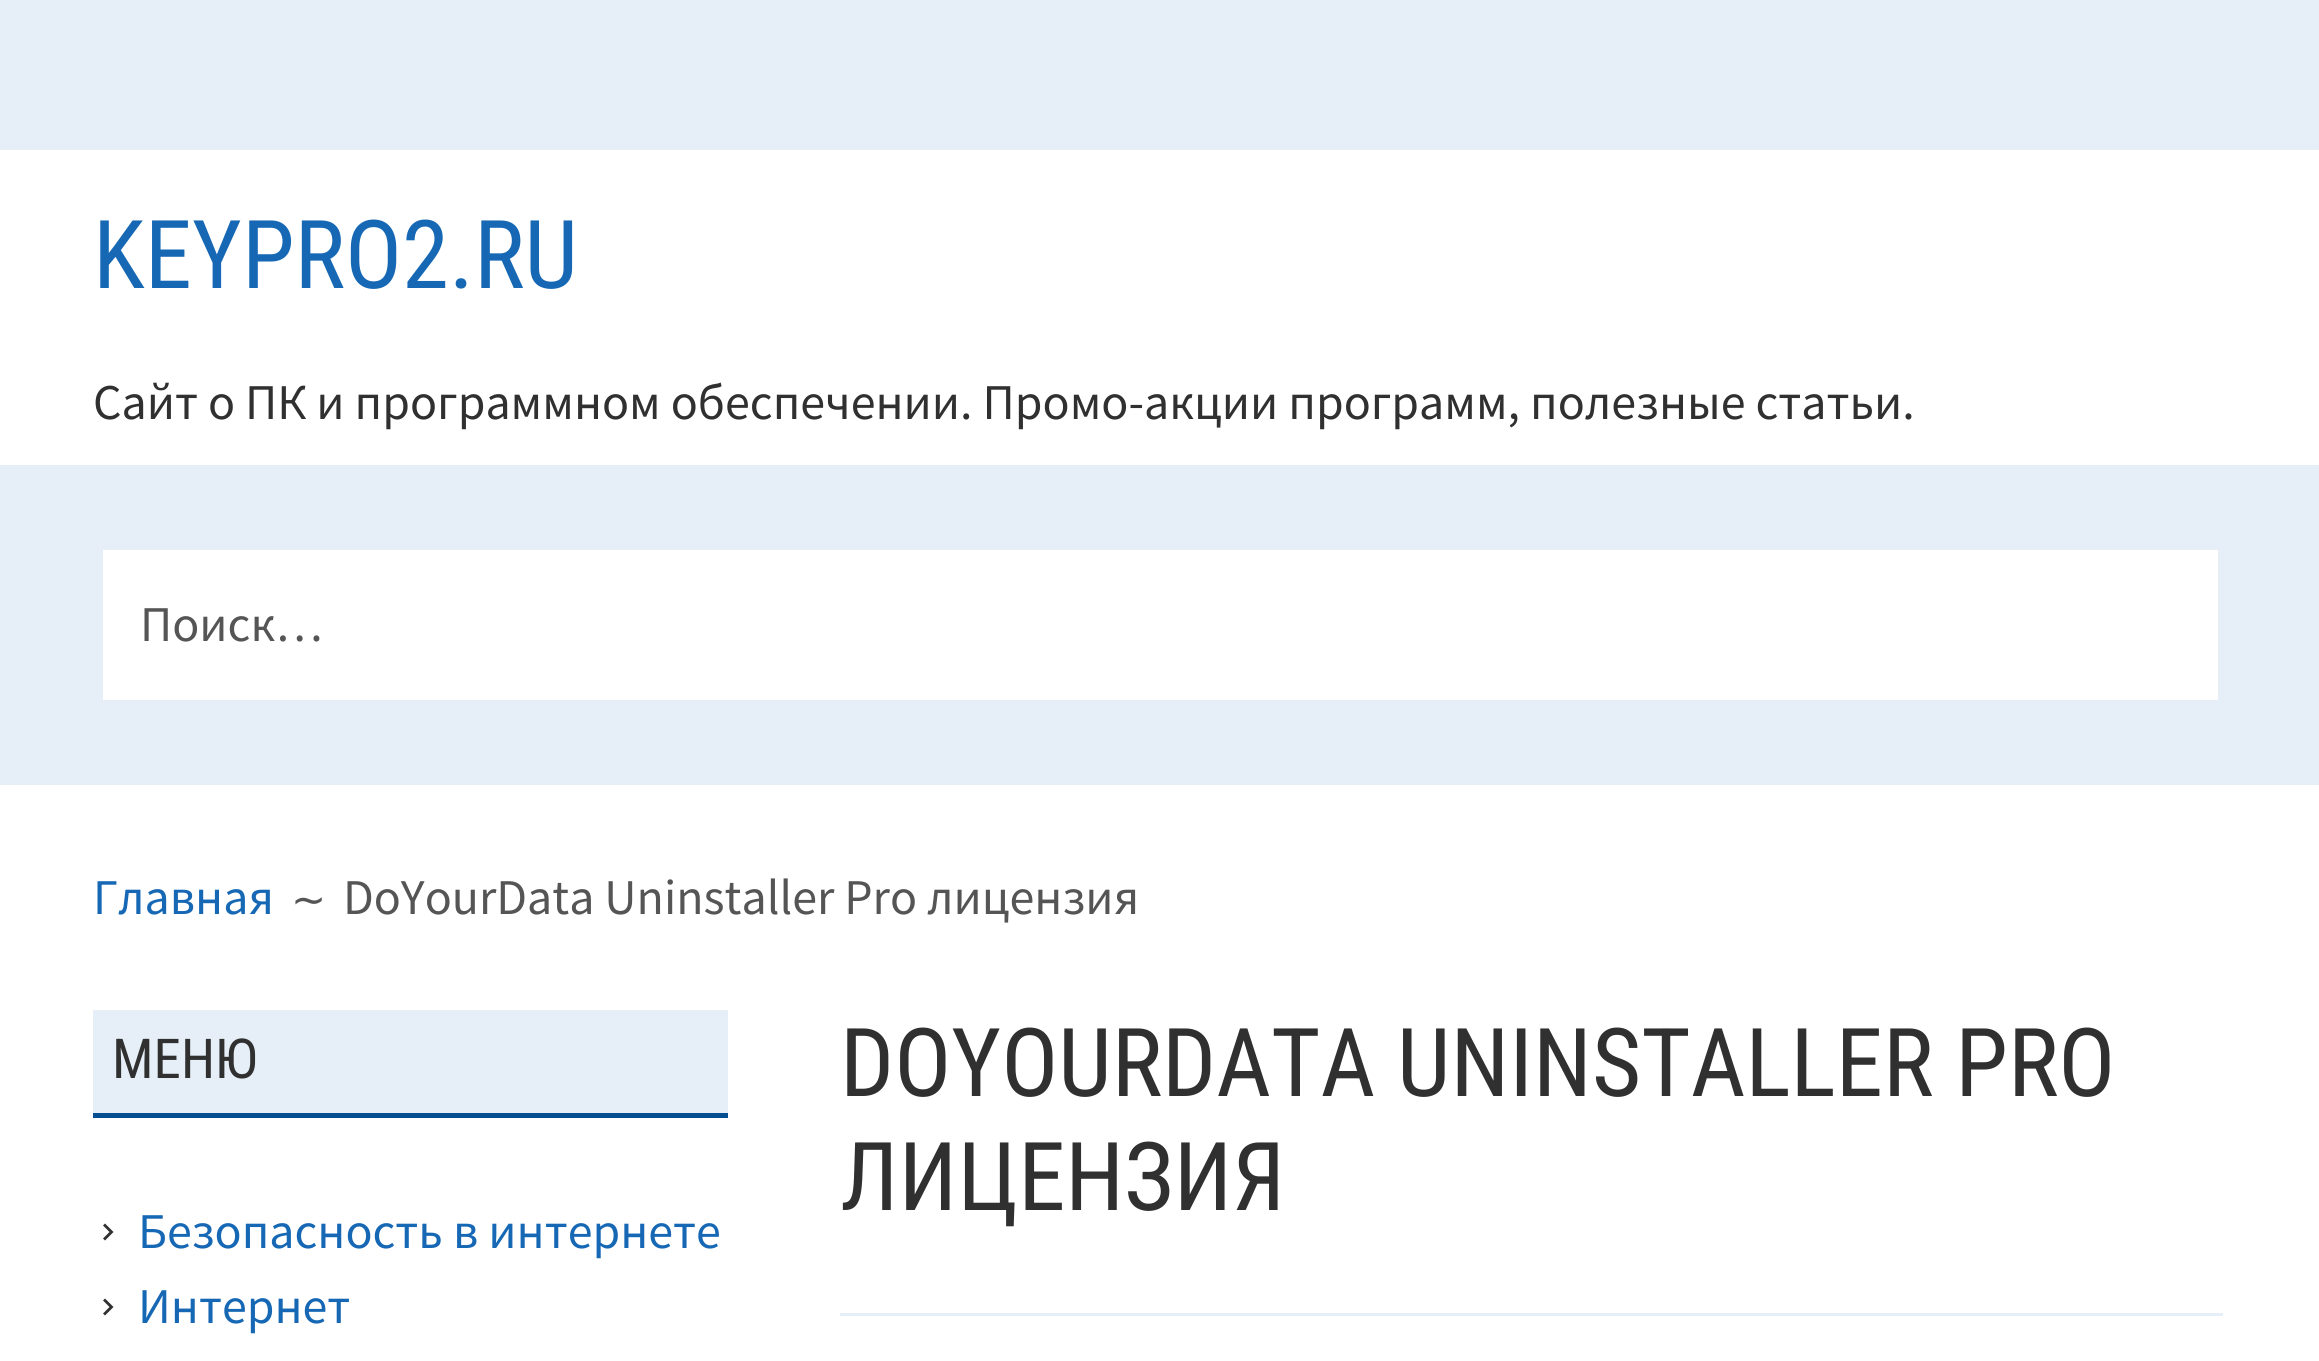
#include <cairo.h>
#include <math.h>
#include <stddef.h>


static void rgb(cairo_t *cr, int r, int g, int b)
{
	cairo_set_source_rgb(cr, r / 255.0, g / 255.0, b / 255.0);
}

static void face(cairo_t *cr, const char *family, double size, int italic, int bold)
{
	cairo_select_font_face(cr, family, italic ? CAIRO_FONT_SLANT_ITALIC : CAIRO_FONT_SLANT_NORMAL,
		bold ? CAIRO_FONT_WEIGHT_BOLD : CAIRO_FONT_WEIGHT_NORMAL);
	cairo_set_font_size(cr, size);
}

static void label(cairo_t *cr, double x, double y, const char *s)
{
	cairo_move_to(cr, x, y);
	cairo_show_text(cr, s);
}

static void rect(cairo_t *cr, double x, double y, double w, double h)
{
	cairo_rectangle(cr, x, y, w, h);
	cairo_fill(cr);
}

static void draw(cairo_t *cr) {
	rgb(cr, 230, 239, 247);
	cairo_paint(cr);
	rgb(cr, 255, 255, 255);
	rect(cr, 0, 150, 2319, 315);
	face(cr, "Roboto Condensed", 95, 0, 0);
	rgb(cr, 22, 104, 181);
	label(cr, 93, 288, "KEYPRO2.RU");
	face(cr, "Source Sans Pro", 50, 0, 0);
	rgb(cr, 48, 48, 48);
	label(cr, 93, 419, "Сайт о ПК и программном обеспечении. Промо-акции программ, полезные статьи.");
	rgb(cr, 255, 255, 255);
	rect(cr, 103, 550, 2115, 150);
	rgb(cr, 85, 85, 85);
	label(cr, 140, 641, "Поиск…");
	rgb(cr, 255, 255, 255);
	rect(cr, 0, 785, 2319, 576);
	rgb(cr, 22, 104, 181);
	label(cr, 93, 914, "Главная");
	face(cr, "DejaVu Sans", 42, 0, 0);
	rgb(cr, 85, 85, 85);
	label(cr, 291, 914, "∼");
	face(cr, "Source Sans Pro", 50, 0, 0);
	label(cr, 343, 914, "DoYourData Uninstaller Pro лицензия");
	rgb(cr, 230, 239, 247);
	rect(cr, 93, 1010, 635, 103);
	rgb(cr, 5, 78, 146);
	rect(cr, 93, 1113, 635, 5);
	face(cr, "Roboto Condensed", 55, 0, 0);
	rgb(cr, 48, 48, 48);
	label(cr, 112, 1078, "МЕНЮ");
	cairo_new_path(cr);
	cairo_move_to(cr, 103, 1238.5);
	cairo_line_to(cr, 109.5, 1232);
	cairo_line_to(cr, 103, 1225.5);
	cairo_line_to(cr, 105, 1223.5);
	cairo_line_to(cr, 113.5, 1232);
	cairo_line_to(cr, 105, 1240.5);
	cairo_close_path(cr);
	cairo_fill(cr);
	face(cr, "Source Sans Pro", 50, 0, 0);
	rgb(cr, 22, 104, 181);
	label(cr, 138, 1248, "Безопасность в интернете");
	rgb(cr, 48, 48, 48);
	cairo_new_path(cr);
	cairo_move_to(cr, 103, 1313.5);
	cairo_line_to(cr, 109.5, 1307);
	cairo_line_to(cr, 103, 1300.5);
	cairo_line_to(cr, 105, 1298.5);
	cairo_line_to(cr, 113.5, 1307);
	cairo_line_to(cr, 105, 1315.5);
	cairo_close_path(cr);
	cairo_fill(cr);
	rgb(cr, 22, 104, 181);
	label(cr, 138, 1323, "Интернет");
	rgb(cr, 230, 239, 247);
	rect(cr, 840, 1313, 1383, 3);
	face(cr, "Roboto Condensed", 95, 0, 0);
	rgb(cr, 48, 48, 48);
	label(cr, 840, 1096, "DOYOURDATA UNINSTALLER PRO");
	label(cr, 840, 1210, "ЛИЦЕНЗИЯ");
}

int main(void) {
	cairo_surface_t *surface = cairo_image_surface_create(CAIRO_FORMAT_RGB24, 2319, 1361);
	cairo_t *cr = cairo_create(surface);
	cairo_font_options_t *options = cairo_font_options_create();
	cairo_font_options_set_hint_metrics(options, CAIRO_HINT_METRICS_OFF);
	cairo_font_options_set_hint_style(options, CAIRO_HINT_STYLE_NONE);
	cairo_set_font_options(cr, options);
	cairo_set_miter_limit(cr, 4);
	draw(cr);
	cairo_surface_write_to_png(surface, "render.png");
	cairo_font_options_destroy(options);
	cairo_destroy(cr);
	cairo_surface_destroy(surface);
	return 0;
}
